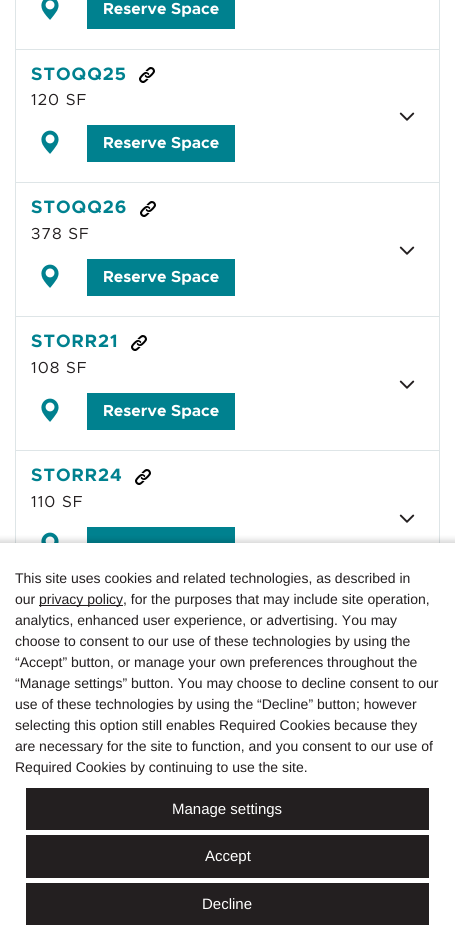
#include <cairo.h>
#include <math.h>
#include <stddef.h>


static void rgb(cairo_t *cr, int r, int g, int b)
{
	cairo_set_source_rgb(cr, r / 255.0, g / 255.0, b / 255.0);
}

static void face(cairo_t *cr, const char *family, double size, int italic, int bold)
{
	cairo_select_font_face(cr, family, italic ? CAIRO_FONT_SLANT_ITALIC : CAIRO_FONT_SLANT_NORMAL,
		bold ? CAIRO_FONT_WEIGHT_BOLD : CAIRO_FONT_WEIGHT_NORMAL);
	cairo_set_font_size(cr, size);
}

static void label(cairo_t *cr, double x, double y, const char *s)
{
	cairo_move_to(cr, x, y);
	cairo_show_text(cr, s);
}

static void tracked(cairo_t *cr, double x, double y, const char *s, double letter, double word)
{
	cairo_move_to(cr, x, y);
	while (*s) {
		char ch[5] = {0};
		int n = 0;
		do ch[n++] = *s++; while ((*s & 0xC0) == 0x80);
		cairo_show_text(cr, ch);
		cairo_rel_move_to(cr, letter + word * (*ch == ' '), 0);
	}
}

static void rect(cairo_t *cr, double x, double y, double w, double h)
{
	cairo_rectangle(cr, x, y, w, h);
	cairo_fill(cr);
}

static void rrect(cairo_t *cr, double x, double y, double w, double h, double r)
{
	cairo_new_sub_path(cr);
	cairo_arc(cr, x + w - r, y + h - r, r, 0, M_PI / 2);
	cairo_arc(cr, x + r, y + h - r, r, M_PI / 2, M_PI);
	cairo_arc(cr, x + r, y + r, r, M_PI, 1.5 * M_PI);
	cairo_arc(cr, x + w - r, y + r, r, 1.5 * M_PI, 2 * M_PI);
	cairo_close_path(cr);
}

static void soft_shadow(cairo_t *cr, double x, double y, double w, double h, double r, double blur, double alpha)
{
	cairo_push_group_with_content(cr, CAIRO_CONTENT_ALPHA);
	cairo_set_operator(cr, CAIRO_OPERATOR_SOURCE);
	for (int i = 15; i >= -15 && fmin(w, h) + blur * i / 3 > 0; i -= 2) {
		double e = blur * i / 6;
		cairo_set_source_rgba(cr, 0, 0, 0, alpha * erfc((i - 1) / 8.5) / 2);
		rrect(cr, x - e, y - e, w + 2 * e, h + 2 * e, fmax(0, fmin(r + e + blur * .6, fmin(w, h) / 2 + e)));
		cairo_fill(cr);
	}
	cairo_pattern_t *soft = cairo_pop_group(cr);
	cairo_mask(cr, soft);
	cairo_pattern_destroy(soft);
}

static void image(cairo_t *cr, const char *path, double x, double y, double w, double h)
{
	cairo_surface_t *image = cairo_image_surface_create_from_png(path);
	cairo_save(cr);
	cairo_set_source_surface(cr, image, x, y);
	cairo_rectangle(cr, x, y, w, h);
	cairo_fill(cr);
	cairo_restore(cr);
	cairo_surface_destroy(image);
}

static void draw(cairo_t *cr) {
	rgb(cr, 255, 255, 255);
	cairo_paint(cr);
	cairo_rectangle(cr, 15.5, -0.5, 424, 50);
	rgb(cr, 222, 229, 231);
	cairo_set_line_width(cr, 1);
	cairo_stroke(cr);
	image(cr, "image0.png", 41, 0, 18, 20);
	rgb(cr, 0, 129, 143);
	rect(cr, 87, 0, 148, 29);
	face(cr, "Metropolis", 16, 0, 1);
	rgb(cr, 255, 255, 255);
	label(cr, 103, 14, "Reserve Space");
	cairo_rectangle(cr, 15.5, 49.5, 424, 133);
	rgb(cr, 222, 229, 231);
	cairo_stroke(cr);
	face(cr, "Metropolis", 18, 0, 1);
	rgb(cr, 0, 129, 143);
	tracked(cr, 31, 80, "STOQQ25", 1, 0);
	image(cr, "image1.png", 139, 67, 16, 16);
	face(cr, "Metropolis", 16, 0, 0);
	rgb(cr, 35, 31, 32);
	tracked(cr, 31, 105, "120 SF", 1, 0);
	image(cr, "image2.png", 399, 112, 16, 9);
	image(cr, "image3.png", 41, 130, 18, 24);
	rgb(cr, 0, 129, 143);
	rect(cr, 87, 125, 148, 37);
	face(cr, "Metropolis", 16, 0, 1);
	rgb(cr, 255, 255, 255);
	label(cr, 103, 148, "Reserve Space");
	cairo_rectangle(cr, 15.5, 182.5, 424, 134);
	rgb(cr, 222, 229, 231);
	cairo_stroke(cr);
	face(cr, "Metropolis", 18, 0, 1);
	rgb(cr, 0, 129, 143);
	tracked(cr, 31, 213, "STOQQ26", 1, 0);
	image(cr, "image1.png", 140, 201, 16, 16);
	face(cr, "Metropolis", 16, 0, 0);
	rgb(cr, 35, 31, 32);
	tracked(cr, 31, 239, "378 SF", 1, 0);
	image(cr, "image2.png", 399, 246, 16, 9);
	image(cr, "image3.png", 41, 264, 18, 24);
	rgb(cr, 0, 129, 143);
	rect(cr, 87, 259, 148, 37);
	face(cr, "Metropolis", 16, 0, 1);
	rgb(cr, 255, 255, 255);
	label(cr, 103, 282, "Reserve Space");
	cairo_rectangle(cr, 15.5, 316.5, 424, 134);
	rgb(cr, 222, 229, 231);
	cairo_stroke(cr);
	face(cr, "Metropolis", 18, 0, 1);
	rgb(cr, 0, 129, 143);
	tracked(cr, 31, 347, "STORR21", 1, 0);
	image(cr, "image1.png", 131, 335, 16, 16);
	face(cr, "Metropolis", 16, 0, 0);
	rgb(cr, 35, 31, 32);
	tracked(cr, 31, 373, "108 SF", 1, 0);
	image(cr, "image2.png", 399, 380, 16, 9);
	image(cr, "image3.png", 41, 398, 18, 24);
	rgb(cr, 0, 129, 143);
	rect(cr, 87, 393, 148, 37);
	face(cr, "Metropolis", 16, 0, 1);
	rgb(cr, 255, 255, 255);
	label(cr, 103, 416, "Reserve Space");
	cairo_rectangle(cr, 15.5, 450.5, 424, 134);
	rgb(cr, 222, 229, 231);
	cairo_stroke(cr);
	face(cr, "Metropolis", 18, 0, 1);
	rgb(cr, 0, 129, 143);
	tracked(cr, 31, 481, "STORR24", 1, 0);
	image(cr, "image1.png", 135, 469, 16, 16);
	face(cr, "Metropolis", 16, 0, 0);
	rgb(cr, 35, 31, 32);
	tracked(cr, 31, 507, "110 SF", 1, 0);
	image(cr, "image2.png", 399, 514, 16, 9);
	image(cr, "image4.png", 41, 532, 18, 11);
	rgb(cr, 0, 129, 143);
	rect(cr, 87, 527, 148, 16);
	rgb(cr, 0, 0, 0);
	soft_shadow(cr, -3, 540, 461, 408, 0, 3, 0.16);
	rgb(cr, 255, 255, 255);
	rect(cr, 0, 543, 455, 402);
	face(cr, "Liberation Sans", 14, 0, 0);
	rgb(cr, 35, 31, 32);
	label(cr, 15, 583, "This site uses cookies and related technologies, as described in");
	label(cr, 15, 604, "our");
	rect(cr, 39, 605, 84, 1);
	label(cr, 39, 604, "privacy policy, for the purposes that may include site operation,");
	label(cr, 15, 625, "analytics, enhanced user experience, or advertising. You may");
	label(cr, 15, 646, "choose to consent to our use of these technologies by using the");
	label(cr, 15, 667, "“Accept” button, or manage your own preferences throughout the");
	label(cr, 15, 688, "“Manage settings” button. You may choose to decline consent to our");
	label(cr, 15, 709, "use of these technologies by using the “Decline” button; however");
	label(cr, 15, 730, "selecting this option still enables Required Cookies because they");
	label(cr, 15, 751, "are necessary for the site to function, and you consent to our use of");
	label(cr, 15, 772, "Required Cookies by continuing to use the site.");
	rect(cr, 26, 788, 403, 42);
	face(cr, "Liberation Sans", 15, 0, 0);
	rgb(cr, 255, 255, 255);
	label(cr, 172, 814, "Manage settings");
	rgb(cr, 35, 31, 32);
	rect(cr, 26, 835, 403, 43);
	rgb(cr, 255, 255, 255);
	label(cr, 205, 861, "Accept");
	rgb(cr, 35, 31, 32);
	rect(cr, 26, 883, 403, 42);
	rgb(cr, 255, 255, 255);
	label(cr, 202, 909, "Decline");
}

int main(void) {
	cairo_surface_t *surface = cairo_image_surface_create(CAIRO_FORMAT_RGB24, 455, 945);
	cairo_t *cr = cairo_create(surface);
	cairo_font_options_t *options = cairo_font_options_create();
	cairo_font_options_set_hint_metrics(options, CAIRO_HINT_METRICS_OFF);
	cairo_font_options_set_hint_style(options, CAIRO_HINT_STYLE_NONE);
	cairo_set_font_options(cr, options);
	cairo_set_miter_limit(cr, 4);
	draw(cr);
	cairo_surface_write_to_png(surface, "render.png");
	cairo_font_options_destroy(options);
	cairo_destroy(cr);
	cairo_surface_destroy(surface);
	return 0;
}
